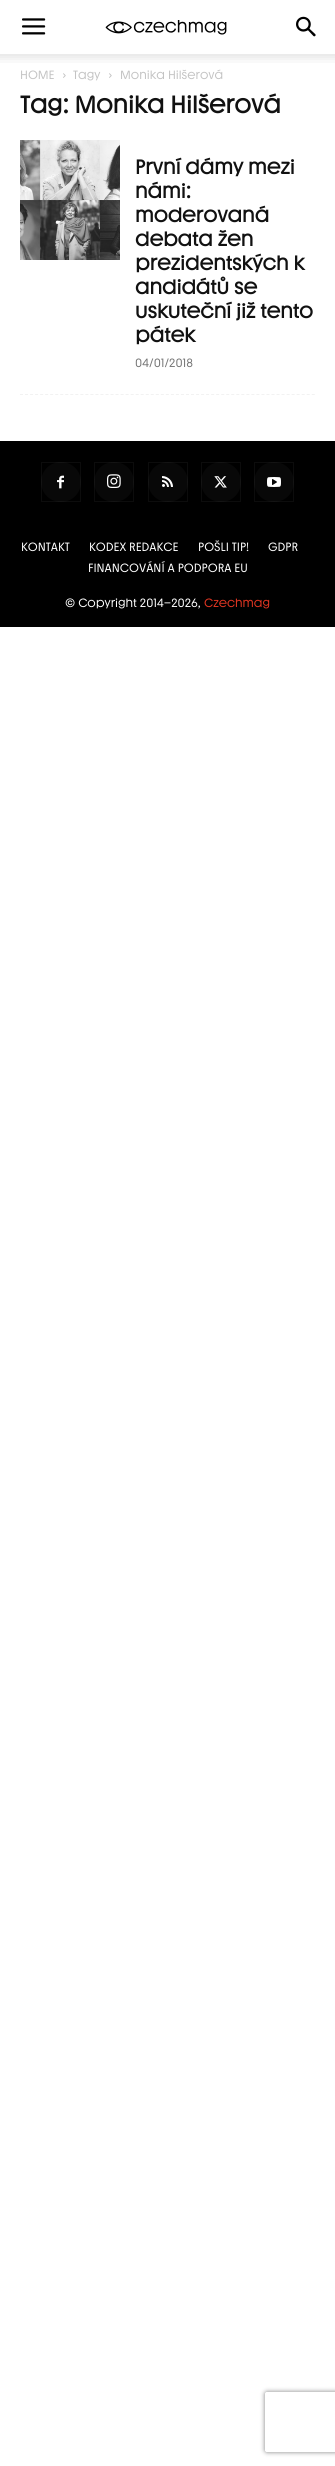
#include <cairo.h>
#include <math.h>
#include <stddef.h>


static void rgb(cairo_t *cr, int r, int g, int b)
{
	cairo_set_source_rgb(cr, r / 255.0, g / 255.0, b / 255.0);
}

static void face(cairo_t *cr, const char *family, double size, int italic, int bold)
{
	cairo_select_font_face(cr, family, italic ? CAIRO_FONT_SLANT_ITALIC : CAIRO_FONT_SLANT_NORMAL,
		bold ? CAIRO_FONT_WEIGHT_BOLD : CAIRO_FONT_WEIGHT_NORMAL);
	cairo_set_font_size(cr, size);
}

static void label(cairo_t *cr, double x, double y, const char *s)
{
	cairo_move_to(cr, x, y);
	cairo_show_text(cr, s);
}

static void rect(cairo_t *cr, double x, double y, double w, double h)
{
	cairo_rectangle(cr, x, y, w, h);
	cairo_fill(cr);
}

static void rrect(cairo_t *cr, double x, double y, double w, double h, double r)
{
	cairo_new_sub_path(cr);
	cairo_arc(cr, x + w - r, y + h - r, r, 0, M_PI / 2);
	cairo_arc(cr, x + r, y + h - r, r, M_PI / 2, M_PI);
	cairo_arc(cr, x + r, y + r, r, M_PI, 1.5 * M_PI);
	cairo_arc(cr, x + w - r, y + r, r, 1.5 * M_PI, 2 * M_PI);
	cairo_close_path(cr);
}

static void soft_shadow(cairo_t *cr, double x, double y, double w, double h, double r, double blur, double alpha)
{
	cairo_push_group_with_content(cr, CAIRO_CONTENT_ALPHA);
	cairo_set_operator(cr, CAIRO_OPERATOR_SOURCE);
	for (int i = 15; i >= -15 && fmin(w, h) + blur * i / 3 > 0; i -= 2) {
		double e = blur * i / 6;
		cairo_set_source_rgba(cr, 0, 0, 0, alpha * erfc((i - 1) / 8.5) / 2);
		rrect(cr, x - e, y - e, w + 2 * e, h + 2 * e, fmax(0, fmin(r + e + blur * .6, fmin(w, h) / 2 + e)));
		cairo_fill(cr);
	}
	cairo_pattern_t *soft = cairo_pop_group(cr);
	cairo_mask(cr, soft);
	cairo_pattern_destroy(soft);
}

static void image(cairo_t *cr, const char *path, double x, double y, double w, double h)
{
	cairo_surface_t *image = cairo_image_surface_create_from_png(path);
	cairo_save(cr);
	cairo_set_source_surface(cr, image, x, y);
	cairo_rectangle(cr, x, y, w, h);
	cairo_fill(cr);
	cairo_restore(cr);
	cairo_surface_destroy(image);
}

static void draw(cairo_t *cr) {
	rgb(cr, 255, 255, 255);
	cairo_paint(cr);
	image(cr, "image0.png", 22, 18, 24, 17);
	image(cr, "image1.png", 105, 20, 122, 15);
	image(cr, "image2.png", 296, 16, 20, 21);
	image(cr, "image3.png", 0, 54, 335, 9);
	face(cr, "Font", 12, 0, 0);
	rgb(cr, 195, 195, 195);
	label(cr, 20, 79, "HOME");
	image(cr, "image4.png", 63, 73, 3, 5);
	label(cr, 73, 79, "Tagy");
	image(cr, "image4.png", 109, 73, 3, 5);
	label(cr, 120, 79, "Monika Hilšerová");
	face(cr, "Font", 24, 0, 1);
	rgb(cr, 17, 17, 17);
	label(cr, 20, 113, "Tag: Monika Hilšerová");
	cairo_new_path(cr);
	cairo_move_to(cr, 20, 394.5);
	cairo_line_to(cr, 315, 394.5);
	rgb(cr, 242, 242, 242);
	cairo_set_line_width(cr, 1);
	cairo_set_dash(cr, (double[]){3, 2.03}, 2, 0);
	cairo_stroke(cr);
	image(cr, "image5.png", 20, 140, 100, 120);
	face(cr, "Font", 20, 0, 1);
	rgb(cr, 17, 17, 17);
	label(cr, 135, 174, "První dámy mezi");
	label(cr, 135, 198, "námi:");
	label(cr, 135, 222, "moderovaná");
	label(cr, 135, 246, "debata žen");
	label(cr, 135, 270, "prezidentských k");
	label(cr, 135, 294, "andidátů se");
	label(cr, 135, 318, "uskuteční již tento");
	label(cr, 135, 342, "pátek");
	face(cr, "Font", 12, 0, 0);
	rgb(cr, 118, 118, 118);
	label(cr, 135, 367, "04/01/2018");
	rgb(cr, 0, 0, 0);
	rect(cr, 0, 441, 335, 186);
	rgb(cr, 8, 8, 8);
	cairo_new_path(cr);
	cairo_arc(cr, 61, 482, 20, 0, 2 * M_PI);
	cairo_fill(cr);
	image(cr, "image6.png", 57, 475, 7, 14);
	cairo_rectangle(cr, 41.5, 462.5, 39, 39);
	cairo_set_source_rgba(cr, 1, 1, 1, 0.05);
	cairo_set_dash(cr, NULL, 0, 0);
	cairo_stroke(cr);
	rgb(cr, 8, 8, 8);
	cairo_arc(cr, 114, 482, 20, 0, 2 * M_PI);
	cairo_fill(cr);
	image(cr, "image7.png", 107, 474, 14, 14);
	cairo_rectangle(cr, 94.5, 462.5, 39, 39);
	cairo_set_source_rgba(cr, 1, 1, 1, 0.05);
	cairo_stroke(cr);
	rgb(cr, 8, 8, 8);
	cairo_arc(cr, 168, 482, 20, 0, 2 * M_PI);
	cairo_fill(cr);
	image(cr, "image8.png", 162, 476, 11, 11);
	cairo_rectangle(cr, 148.5, 462.5, 39, 39);
	cairo_set_source_rgba(cr, 1, 1, 1, 0.05);
	cairo_stroke(cr);
	rgb(cr, 8, 8, 8);
	cairo_arc(cr, 221, 482, 20, 0, 2 * M_PI);
	cairo_fill(cr);
	image(cr, "image9.png", 214, 476, 13, 12);
	cairo_rectangle(cr, 201.5, 462.5, 39, 39);
	cairo_set_source_rgba(cr, 1, 1, 1, 0.05);
	cairo_stroke(cr);
	rgb(cr, 8, 8, 8);
	cairo_arc(cr, 274, 482, 20, 0, 2 * M_PI);
	cairo_fill(cr);
	image(cr, "image10.png", 267, 477, 14, 10);
	cairo_rectangle(cr, 254.5, 462.5, 39, 39);
	cairo_set_source_rgba(cr, 1, 1, 1, 0.05);
	cairo_stroke(cr);
	rgb(cr, 255, 255, 255);
	label(cr, 21, 551, "KONTAKT");
	label(cr, 89, 551, "KODEX REDAKCE");
	label(cr, 198, 551, "POŠLI TIP!");
	label(cr, 268, 551, "GDPR");
	label(cr, 88, 572, "FINANCOVÁNÍ A PODPORA EU");
	label(cr, 65, 607, "© Copyright 2014–2026,");
	rgb(cr, 229, 54, 34);
	label(cr, 204, 607, "Czechmag");
	cairo_save(cr);
	cairo_set_fill_rule(cr, CAIRO_FILL_RULE_EVEN_ODD);
	cairo_new_path(cr);
	cairo_move_to(cr, 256, 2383);
	cairo_line_to(cr, 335, 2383);
	cairo_line_to(cr, 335, 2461);
	cairo_line_to(cr, 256, 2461);
	cairo_close_path(cr);
	cairo_move_to(cr, 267, 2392);
	cairo_line_to(cr, 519, 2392);
	cairo_curve_to(cr, 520, 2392, 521, 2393, 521, 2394);
	cairo_line_to(cr, 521, 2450);
	cairo_curve_to(cr, 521, 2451, 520, 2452, 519, 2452);
	cairo_line_to(cr, 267, 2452);
	cairo_curve_to(cr, 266, 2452, 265, 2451, 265, 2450);
	cairo_line_to(cr, 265, 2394);
	cairo_curve_to(cr, 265, 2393, 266, 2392, 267, 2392);
	cairo_close_path(cr);
	cairo_clip(cr);
	rgb(cr, 128, 128, 128);
	soft_shadow(cr, 265, 2392, 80, 60, 2, 2.5, 1);
	cairo_restore(cr);
}

int main(void) {
	cairo_surface_t *surface = cairo_image_surface_create(CAIRO_FORMAT_RGB24, 335, 2466);
	cairo_t *cr = cairo_create(surface);
	cairo_font_options_t *options = cairo_font_options_create();
	cairo_font_options_set_hint_metrics(options, CAIRO_HINT_METRICS_OFF);
	cairo_font_options_set_hint_style(options, CAIRO_HINT_STYLE_NONE);
	cairo_set_font_options(cr, options);
	cairo_set_miter_limit(cr, 4);
	draw(cr);
	cairo_surface_write_to_png(surface, "render.png");
	cairo_font_options_destroy(options);
	cairo_destroy(cr);
	cairo_surface_destroy(surface);
	return 0;
}
